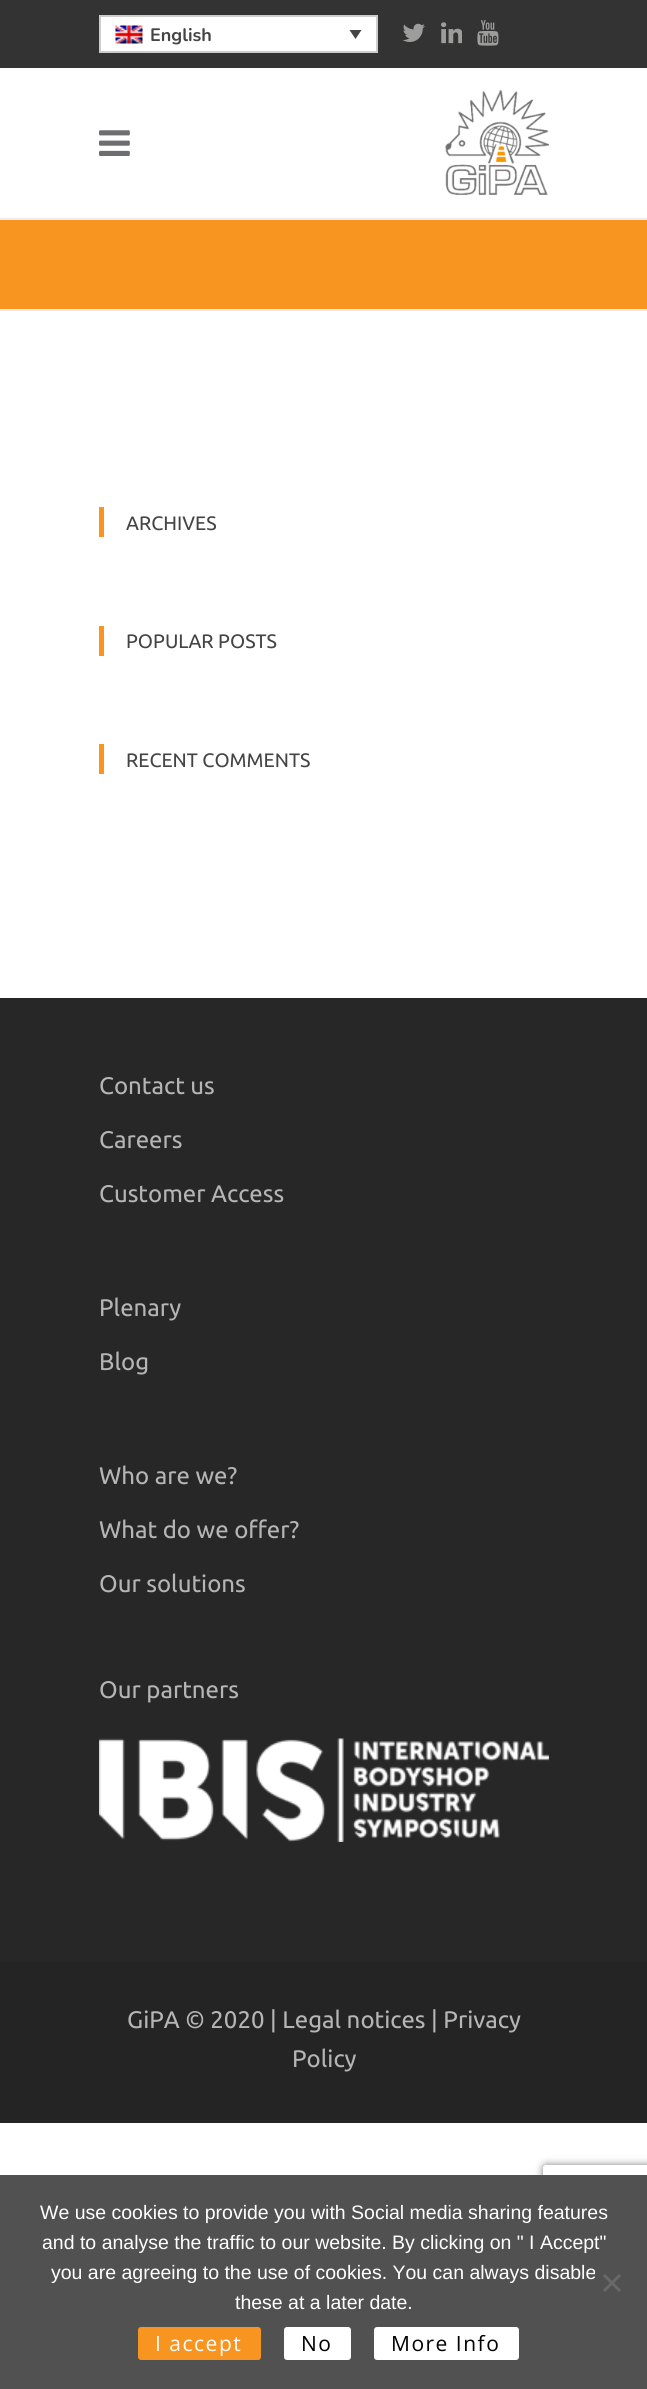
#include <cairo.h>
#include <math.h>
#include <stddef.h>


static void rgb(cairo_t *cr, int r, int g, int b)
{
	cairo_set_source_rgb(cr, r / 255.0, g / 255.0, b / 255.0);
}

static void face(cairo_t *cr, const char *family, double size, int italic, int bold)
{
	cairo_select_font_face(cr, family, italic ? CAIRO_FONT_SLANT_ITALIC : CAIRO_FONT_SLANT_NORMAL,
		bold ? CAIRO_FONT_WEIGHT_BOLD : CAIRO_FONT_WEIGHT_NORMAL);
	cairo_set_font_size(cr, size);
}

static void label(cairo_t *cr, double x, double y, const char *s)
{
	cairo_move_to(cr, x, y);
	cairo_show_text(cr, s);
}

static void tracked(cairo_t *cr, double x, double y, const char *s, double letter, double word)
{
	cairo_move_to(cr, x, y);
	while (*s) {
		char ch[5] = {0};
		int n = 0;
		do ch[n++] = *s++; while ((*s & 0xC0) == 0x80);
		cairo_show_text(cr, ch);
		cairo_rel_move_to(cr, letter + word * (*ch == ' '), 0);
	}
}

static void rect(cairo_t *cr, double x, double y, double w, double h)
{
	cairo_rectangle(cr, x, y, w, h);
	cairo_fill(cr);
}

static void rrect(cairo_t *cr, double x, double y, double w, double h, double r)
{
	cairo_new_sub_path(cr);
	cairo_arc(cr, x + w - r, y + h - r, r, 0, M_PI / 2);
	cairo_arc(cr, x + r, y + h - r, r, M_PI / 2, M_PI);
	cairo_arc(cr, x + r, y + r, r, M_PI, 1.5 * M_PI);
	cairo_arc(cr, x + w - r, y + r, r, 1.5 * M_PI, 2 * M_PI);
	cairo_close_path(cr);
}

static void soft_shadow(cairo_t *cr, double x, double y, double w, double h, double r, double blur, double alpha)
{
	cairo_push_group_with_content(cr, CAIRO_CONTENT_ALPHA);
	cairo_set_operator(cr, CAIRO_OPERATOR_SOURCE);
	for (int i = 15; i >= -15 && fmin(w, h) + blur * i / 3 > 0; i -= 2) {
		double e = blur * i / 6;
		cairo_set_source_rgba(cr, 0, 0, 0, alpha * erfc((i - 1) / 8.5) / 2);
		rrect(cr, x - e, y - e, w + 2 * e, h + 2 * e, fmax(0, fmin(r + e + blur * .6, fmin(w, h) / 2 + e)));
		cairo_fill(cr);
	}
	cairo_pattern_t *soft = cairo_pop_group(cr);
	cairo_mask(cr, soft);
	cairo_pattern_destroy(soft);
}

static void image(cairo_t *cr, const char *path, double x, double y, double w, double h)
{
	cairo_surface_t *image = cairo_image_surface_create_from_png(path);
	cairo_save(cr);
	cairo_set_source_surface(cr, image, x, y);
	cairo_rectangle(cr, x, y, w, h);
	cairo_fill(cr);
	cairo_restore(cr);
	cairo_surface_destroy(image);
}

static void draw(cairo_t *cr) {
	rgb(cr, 255, 255, 255);
	cairo_paint(cr);
	rgb(cr, 51, 51, 51);
	rect(cr, 0, 0, 647, 68);
	rgb(cr, 255, 255, 255);
	cairo_rectangle(cr, 100, 16, 277, 36);
	cairo_fill_preserve(cr);
	rgb(cr, 205, 205, 205);
	cairo_stroke(cr);
	image(cr, "image0.png", 115, 25, 28, 19);
	face(cr, "Nunito ExtraLight", 18, 0, 0);
	rgb(cr, 68, 68, 68);
	label(cr, 150, 41, "English");
	cairo_new_path(cr);
	cairo_move_to(cr, 349.5, 30);
	cairo_line_to(cr, 361.5, 30);
	cairo_line_to(cr, 355.5, 39);
	cairo_close_path(cr);
	cairo_fill(cr);
	image(cr, "image1.png", 403, 23, 22, 19);
	image(cr, "image2.png", 441, 22, 21, 22);
	image(cr, "image3.png", 477, 20, 22, 26);
	rgb(cr, 237, 237, 237);
	rect(cr, 0, 218, 647, 2);
	image(cr, "image4.png", 99, 130, 31, 26);
	image(cr, "image5.png", 445, 90, 104, 105);
	rgb(cr, 247, 149, 32);
	rect(cr, 0, 220, 647, 89);
	rgb(cr, 237, 237, 237);
	rect(cr, 0, 309, 647, 2);
	rgb(cr, 247, 149, 32);
	rect(cr, 99, 507, 5, 30);
	face(cr, "Ubuntu", 19.5, 0, 0);
	rgb(cr, 68, 68, 68);
	label(cr, 126, 530, "ARCHIVES");
	rgb(cr, 247, 149, 32);
	rect(cr, 99, 626, 5, 30);
	rgb(cr, 68, 68, 68);
	label(cr, 126, 648, "POPULAR POSTS");
	rgb(cr, 247, 149, 32);
	rect(cr, 99, 744, 5, 30);
	rgb(cr, 68, 68, 68);
	label(cr, 126, 767, "RECENT COMMENTS");
	rgb(cr, 39, 39, 39);
	rect(cr, 0, 998, 647, 964);
	face(cr, "Ubuntu", 24, 0, 0);
	rgb(cr, 181, 181, 181);
	label(cr, 99, 1094, "Contact us");
	label(cr, 99, 1148, "Careers");
	label(cr, 99, 1202, "Customer Access");
	label(cr, 99, 1316, "Plenary");
	label(cr, 99, 1370, "Blog");
	label(cr, 99, 1484, "Who are we?");
	label(cr, 99, 1538, "What do we offer?");
	label(cr, 99, 1592, "Our solutions");
	label(cr, 99, 1698, "Our partners");
	image(cr, "image6.png", 99, 1738, 450, 104);
	rgb(cr, 36, 36, 36);
	rect(cr, 0, 1962, 647, 161);
	rgb(cr, 181, 181, 181);
	label(cr, 127, 2028, "GiPA © 2020 | Legal notices | Privacy");
	label(cr, 292, 2067, "Policy");
	cairo_save(cr);
	cairo_set_fill_rule(cr, CAIRO_FILL_RULE_EVEN_ODD);
	cairo_new_path(cr);
	cairo_move_to(cr, 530, 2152);
	cairo_line_to(cr, 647, 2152);
	cairo_line_to(cr, 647, 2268);
	cairo_line_to(cr, 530, 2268);
	cairo_close_path(cr);
	cairo_move_to(cr, 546, 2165);
	cairo_line_to(cr, 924, 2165);
	cairo_curve_to(cr, 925.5, 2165, 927, 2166.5, 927, 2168);
	cairo_line_to(cr, 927, 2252);
	cairo_curve_to(cr, 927, 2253.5, 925.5, 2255, 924, 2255);
	cairo_line_to(cr, 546, 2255);
	cairo_curve_to(cr, 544.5, 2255, 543, 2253.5, 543, 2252);
	cairo_line_to(cr, 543, 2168);
	cairo_curve_to(cr, 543, 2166.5, 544.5, 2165, 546, 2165);
	cairo_close_path(cr);
	cairo_clip(cr);
	rgb(cr, 128, 128, 128);
	soft_shadow(cr, 543, 2165, 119, 90, 3, 4, 1);
	cairo_restore(cr);
	rgb(cr, 81, 81, 81);
	rect(cr, 0, 2175, 647, 214);
	face(cr, "Liberation Sans", 19.5, 0, 0);
	rgb(cr, 255, 255, 255);
	label(cr, 40, 2219, "We use cookies to provide you with Social media sharing features");
	label(cr, 42, 2249, "and to analyse the traffic to our website. By clicking on \" I Accept\"");
	label(cr, 51, 2279, "you are agreeing to the use of cookies. You can always disable");
	label(cr, 235, 2309, "these at a later date.");
	rgb(cr, 105, 105, 105);
	cairo_new_path(cr);
	cairo_move_to(cr, 619, 2274);
	cairo_line_to(cr, 621, 2276);
	cairo_line_to(cr, 605, 2292);
	cairo_line_to(cr, 603, 2290);
	cairo_close_path(cr);
	cairo_fill(cr);
	cairo_new_path(cr);
	cairo_move_to(cr, 603, 2276);
	cairo_line_to(cr, 605, 2274);
	cairo_line_to(cr, 621, 2290);
	cairo_line_to(cr, 619, 2292);
	cairo_close_path(cr);
	cairo_fill(cr);
	rgb(cr, 247, 149, 32);
	rrect(cr, 138, 2327, 123, 33, 3);
	cairo_fill(cr);
	face(cr, "Open Sans", 21, 0, 0);
	rgb(cr, 255, 255, 255);
	tracked(cr, 155, 2351, "I accept", 1.5, 0);
	rrect(cr, 284, 2327, 67, 33, 3);
	cairo_fill(cr);
	rgb(cr, 0, 0, 0);
	tracked(cr, 301, 2351, "No", 1.5, 0);
	rgb(cr, 255, 255, 255);
	rrect(cr, 374, 2327, 145, 33, 3);
	cairo_fill(cr);
	rgb(cr, 0, 0, 0);
	tracked(cr, 391, 2351, "More Info", 1.5, 0);
}

int main(void) {
	cairo_surface_t *surface = cairo_image_surface_create(CAIRO_FORMAT_RGB24, 647, 2389);
	cairo_t *cr = cairo_create(surface);
	cairo_font_options_t *options = cairo_font_options_create();
	cairo_font_options_set_hint_metrics(options, CAIRO_HINT_METRICS_OFF);
	cairo_font_options_set_hint_style(options, CAIRO_HINT_STYLE_NONE);
	cairo_set_font_options(cr, options);
	cairo_set_miter_limit(cr, 4);
	draw(cr);
	cairo_surface_write_to_png(surface, "render.png");
	cairo_font_options_destroy(options);
	cairo_destroy(cr);
	cairo_surface_destroy(surface);
	return 0;
}
